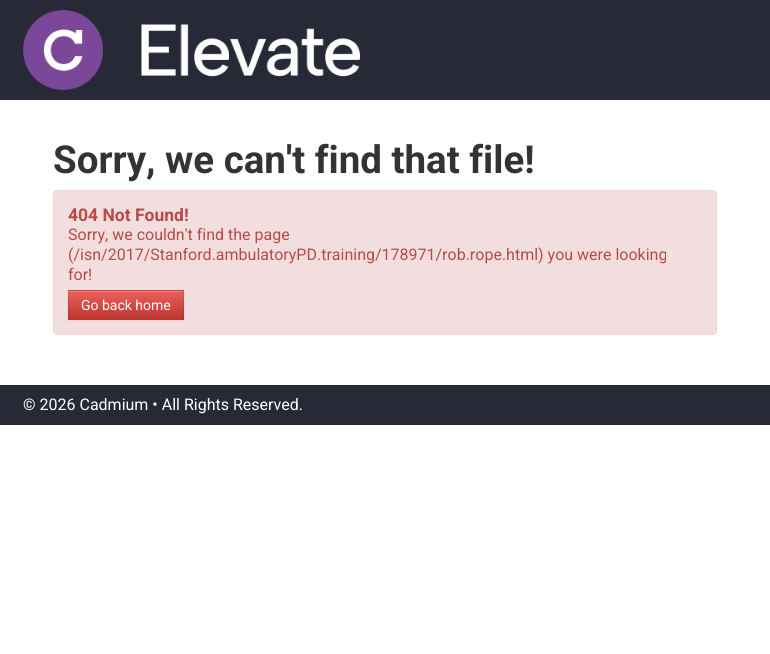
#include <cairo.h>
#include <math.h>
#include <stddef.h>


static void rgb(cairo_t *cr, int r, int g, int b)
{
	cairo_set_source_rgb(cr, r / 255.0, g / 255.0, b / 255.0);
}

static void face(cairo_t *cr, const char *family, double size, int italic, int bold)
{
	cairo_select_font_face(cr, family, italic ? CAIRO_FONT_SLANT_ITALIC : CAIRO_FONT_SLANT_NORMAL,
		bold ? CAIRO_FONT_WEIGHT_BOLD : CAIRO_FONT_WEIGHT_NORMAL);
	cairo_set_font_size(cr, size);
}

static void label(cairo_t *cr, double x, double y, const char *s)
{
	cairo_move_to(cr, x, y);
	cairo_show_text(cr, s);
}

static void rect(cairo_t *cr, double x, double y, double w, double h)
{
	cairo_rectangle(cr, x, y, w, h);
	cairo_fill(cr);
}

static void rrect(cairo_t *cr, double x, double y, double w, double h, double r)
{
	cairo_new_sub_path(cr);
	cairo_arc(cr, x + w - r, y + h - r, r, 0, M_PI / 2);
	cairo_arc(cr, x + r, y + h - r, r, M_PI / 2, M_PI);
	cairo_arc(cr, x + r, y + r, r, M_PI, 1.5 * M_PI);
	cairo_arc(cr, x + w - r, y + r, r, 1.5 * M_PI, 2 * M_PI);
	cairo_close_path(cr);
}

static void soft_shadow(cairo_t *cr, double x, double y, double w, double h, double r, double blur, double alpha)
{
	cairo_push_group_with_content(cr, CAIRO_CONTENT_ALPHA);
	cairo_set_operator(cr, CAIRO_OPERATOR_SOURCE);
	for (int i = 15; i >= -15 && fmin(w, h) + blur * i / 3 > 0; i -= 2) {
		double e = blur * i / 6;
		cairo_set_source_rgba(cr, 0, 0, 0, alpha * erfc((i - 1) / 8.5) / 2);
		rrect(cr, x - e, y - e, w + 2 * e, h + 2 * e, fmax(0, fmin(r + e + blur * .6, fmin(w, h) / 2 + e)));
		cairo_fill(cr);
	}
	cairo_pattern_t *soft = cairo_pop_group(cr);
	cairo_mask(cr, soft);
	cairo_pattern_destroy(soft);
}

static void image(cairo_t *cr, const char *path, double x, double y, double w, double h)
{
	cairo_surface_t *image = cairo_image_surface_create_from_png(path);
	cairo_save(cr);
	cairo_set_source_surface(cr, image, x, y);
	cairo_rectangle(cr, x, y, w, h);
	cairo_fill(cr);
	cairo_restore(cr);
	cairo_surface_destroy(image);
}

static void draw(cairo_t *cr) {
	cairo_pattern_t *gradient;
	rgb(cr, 255, 255, 255);
	cairo_paint(cr);
	rgb(cr, 39, 42, 54);
	rect(cr, 0, 0, 770, 100);
	image(cr, "image0.png", 23, 10, 337, 80);
	face(cr, "Roboto", 38.5, 0, 1);
	rgb(cr, 51, 51, 51);
	label(cr, 53, 173, "Sorry, we can't find that file!");
	rgb(cr, 242, 222, 222);
	rrect(cr, 53.5, 190.5, 663, 144, 3.5);
	cairo_fill_preserve(cr);
	rgb(cr, 238, 211, 215);
	cairo_set_line_width(cr, 1);
	cairo_stroke(cr);
	face(cr, "Roboto", 17.5, 0, 1);
	rgb(cr, 185, 74, 72);
	label(cr, 68, 221, "404 Not Found!");
	face(cr, "Roboto", 16, 0, 0);
	label(cr, 68, 240, "Sorry, we couldn't find the page");
	label(cr, 68, 260, "(/isn/2017/Stanford.ambulatoryPD.training/178971/rob.rope.html) you were looking");
	label(cr, 68, 280, "for!");
	rgb(cr, 0, 0, 0);
	soft_shadow(cr, 68, 291, 116, 30, 0, 1, 0.05);
	rgb(cr, 218, 79, 73);
	rect(cr, 68, 290, 116, 30);
	gradient = cairo_pattern_create_linear(126, 291, 126, 319);
	cairo_pattern_add_color_stop_rgba(gradient, 0, 0.933, 0.373, 0.357, 1);
	cairo_pattern_add_color_stop_rgba(gradient, 1, 0.741, 0.212, 0.184, 1);
	cairo_set_source(cr, gradient);
	cairo_pattern_destroy(gradient);
	rect(cr, 68, 291, 116, 28);
	rgb(cr, 241, 126, 123);
	rect(cr, 69, 291, 114, 1);
	rgb(cr, 196, 71, 66);
	cairo_new_path(cr);
	cairo_move_to(cr, 68, 290);
	cairo_line_to(cr, 184, 290);
	cairo_line_to(cr, 183, 291);
	cairo_line_to(cr, 69, 291);
	cairo_close_path(cr);
	cairo_fill(cr);
	cairo_set_source_rgba(cr, 0, 0, 0, 0.1);
	cairo_new_path(cr);
	cairo_move_to(cr, 184, 290);
	cairo_line_to(cr, 184, 320);
	cairo_line_to(cr, 183, 319);
	cairo_line_to(cr, 183, 291);
	cairo_close_path(cr);
	cairo_fill(cr);
	cairo_set_source_rgba(cr, 0, 0, 0, 0.25);
	cairo_new_path(cr);
	cairo_move_to(cr, 184, 320);
	cairo_line_to(cr, 68, 320);
	cairo_line_to(cr, 69, 319);
	cairo_line_to(cr, 183, 319);
	cairo_close_path(cr);
	cairo_fill(cr);
	cairo_set_source_rgba(cr, 0, 0, 0, 0.1);
	cairo_new_path(cr);
	cairo_move_to(cr, 68, 320);
	cairo_line_to(cr, 68, 290);
	cairo_line_to(cr, 69, 291);
	cairo_line_to(cr, 69, 319);
	cairo_close_path(cr);
	cairo_fill(cr);
	face(cr, "Roboto", 14, 0, 0);
	rgb(cr, 255, 255, 255);
	label(cr, 81, 310, "Go back home");
	rgb(cr, 39, 42, 54);
	rect(cr, 0, 385, 770, 40);
	face(cr, "Roboto", 16, 0, 0);
	rgb(cr, 255, 255, 255);
	label(cr, 23, 410, "© 2026 Cadmium • All Rights Reserved.");
}

int main(void) {
	cairo_surface_t *surface = cairo_image_surface_create(CAIRO_FORMAT_RGB24, 770, 654);
	cairo_t *cr = cairo_create(surface);
	cairo_font_options_t *options = cairo_font_options_create();
	cairo_font_options_set_hint_metrics(options, CAIRO_HINT_METRICS_OFF);
	cairo_font_options_set_hint_style(options, CAIRO_HINT_STYLE_NONE);
	cairo_set_font_options(cr, options);
	cairo_set_miter_limit(cr, 4);
	draw(cr);
	cairo_surface_write_to_png(surface, "render.png");
	cairo_font_options_destroy(options);
	cairo_destroy(cr);
	cairo_surface_destroy(surface);
	return 0;
}
